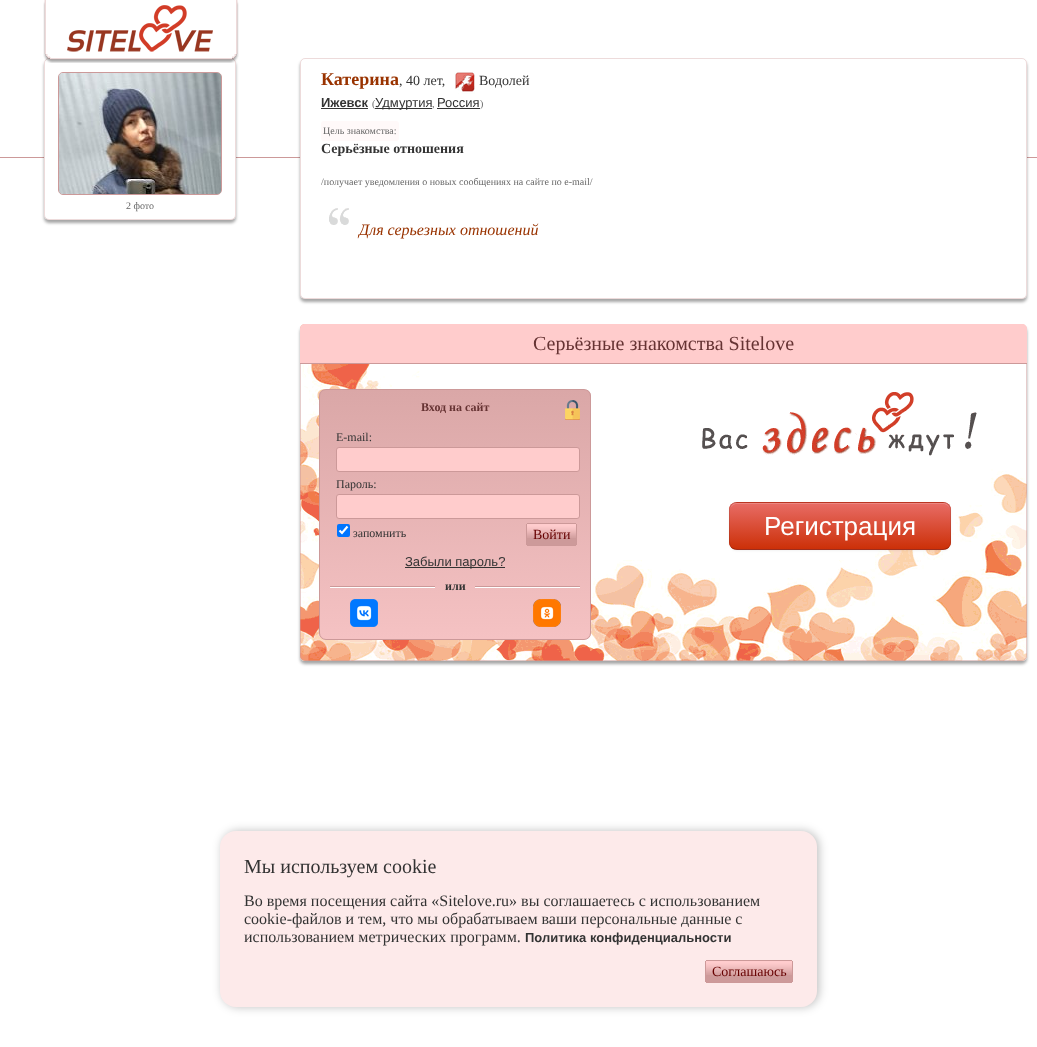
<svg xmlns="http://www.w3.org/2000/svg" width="1037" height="1047">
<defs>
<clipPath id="clip1"><path d="M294 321h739v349h-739zm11 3h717c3 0 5 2 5 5v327c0 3-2 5-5 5h-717c-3 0-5-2-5-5v-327c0-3 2-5 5-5z" clip-rule="evenodd"/></clipPath>
<clipPath id="clip2"><rect x="319" y="389" width="272" height="251" rx="7"/></clipPath>
<linearGradient id="g1" gradientUnits="userSpaceOnUse" x1="455" y1="390" x2="455" y2="639"><stop offset="0" stop-color="#daa7a7"/><stop offset="1" stop-color="#f5c2c3"/></linearGradient>
<clipPath id="clip3"><rect x="729" y="502" width="222" height="48" rx="8"/></clipPath>
<linearGradient id="g2" gradientUnits="userSpaceOnUse" x1="840" y1="503" x2="840" y2="549"><stop offset="0" stop-color="#e86c66"/><stop offset="1" stop-color="#cc3008"/></linearGradient>
</defs>
<rect width="100%" height="100%" fill="#fff"/>
<rect y="157" width="1037" height="1" fill="#c99"/>
<rect x="44" y="61" width="192" height="162" rx="5" fill="#00000059" filter="blur(1.5px)"/>
<rect x="44" y="58" width="192" height="162" rx="5" fill="#fff"/>
<rect x="44.5" y="58.5" width="191" height="161" rx="4.5" fill="none" stroke="#cc999959"/>
<image x="43" y="0" width="196" height="63" href="media/1.png"/>
<image x="59" y="73" width="162" height="121" href="media/2.png"/>
<rect x="58.5" y="72.5" width="163" height="122" rx="4.5" fill="none" stroke="#c99"/>
<image x="59" y="73" width="162" height="121" href="media/3.png"/>
<text x="126" y="209" style="font-family:Liberation Serif;font-size:10px;fill:#666">2 фото</text>
<rect x="300" y="61" width="727" height="241" rx="5" fill="#00000059" filter="blur(1.5px)"/>
<rect x="300" y="58" width="727" height="241" rx="5" fill="#fff"/>
<rect x="300.5" y="58.5" width="726" height="240" rx="4.5" fill="none" stroke="#cc999959"/>
<text x="321" y="85" style="font-family:Liberation Serif;font-size:18px;font-weight:bold;fill:#930">Катерина</text>
<text x="399" y="85" style="font-family:Liberation Serif;font-size:14px;fill:#333">, 40 лет,</text>
<image x="454" y="72" width="21" height="22" href="media/4.png"/>
<text x="479" y="85" style="font-family:Liberation Serif;font-size:14px;fill:#333">Водолей</text>
<text x="321" y="107" style="font-family:Liberation Sans;font-size:13px;font-weight:bold;fill:#333">Ижевск</text>
<rect x="321" y="108" width="47" height="1" fill="#333"/>
<text x="372" y="107" style="font-family:Liberation Serif;font-size:10px;fill:#666">(</text>
<rect x="375" y="108" width="57" height="1" fill="#333"/>
<text x="375" y="107" style="font-family:Liberation Sans;font-size:13px;fill:#333">Удмуртия</text>
<text x="432" y="107" style="font-family:Liberation Serif;font-size:10px;fill:#666">,</text>
<rect x="437" y="108" width="43" height="1" fill="#333"/>
<text x="437" y="107" style="font-family:Liberation Sans;font-size:13px;fill:#333">Россия</text>
<text x="480" y="107" style="font-family:Liberation Serif;font-size:10px;fill:#666">)</text>
<rect x="321" y="121" width="78" height="20" rx="3" fill="#fff9f9"/>
<text x="323" y="134" style="font-family:Liberation Serif;font-size:10px;fill:#666">Цель знакомства:</text>
<text x="321" y="153" style="font-family:Liberation Serif;font-size:14px;font-weight:bold;fill:#333">Серьёзные отношения</text>
<text x="321" y="185" style="font-family:Liberation Serif;font-size:10px;fill:#666">/получает уведомления о новых сообщениях на сайте по e-mail/</text>
<image x="329" y="208" width="20" height="17" href="media/5.png"/>
<text x="359" y="235" style="font-family:Liberation Serif;font-size:16px;font-style:italic;fill:#930">Для серьезных отношений</text>
<rect x="222" y="831" width="597" height="176" rx="16" fill="#00000040" filter="blur(5px)"/>
<rect x="220" y="831" width="597" height="176" rx="16" fill="#fdeaea"/>
<text x="244" y="873" style="font-family:Liberation Serif;font-size:20px;fill:#333">Мы используем сookie</text>
<text x="244" y="906" style="font-family:Liberation Serif;font-size:16px;fill:#333">Во время посещения сайта «Sitelove.ru» вы соглашаетесь с использованием</text>
<text x="244" y="924" style="font-family:Liberation Serif;font-size:16px;fill:#333">cookie-файлов и тем, что мы обрабатываем ваши персональные данные с</text>
<text x="244" y="942" style="font-family:Liberation Serif;font-size:16px;fill:#333">использованием метрических программ.</text>
<text x="525" y="942" style="font-family:Liberation Sans;font-size:13px;font-weight:bold;fill:#333">Политика конфиденциальности</text>
<image x="706" y="960" width="86" height="15" href="media/6.png"/>
<rect x="706" y="975" width="86" height="7" fill="#cd9a9a"/>
<text x="712" y="976" style="font-family:Liberation Serif;font-size:14px;fill:#600">Соглашаюсь</text>
<rect x="792" y="961" width="1" height="21" fill="#c99"/>
<rect x="705" y="961" width="1" height="21" fill="#c99"/>
<rect x="706" y="982" width="86" height="1" fill="#c99"/>
<image x="300" y="324" width="727" height="337" href="media/7.png"/>
<g clip-path="url(#clip1)">
<rect x="300" y="327" width="727" height="337" rx="5" fill="#00000059" filter="blur(1.5px)"/>
</g>
<rect x="300.5" y="324.5" width="726" height="336" rx="4.5" fill="none" stroke="#cc999980"/>
<path d="M305 324h717c3 0 5 2 5 5v35h-727v-35c0-3 2-5 5-5z" fill="#fcc"/>
<rect x="300" y="363" width="727" height="1" fill="#c99"/>
<text x="533" y="350" style="font-family:Liberation Serif;font-size:20px;fill:#633">Серьёзные знакомства Sitelove</text>
<g clip-path="url(#clip2)">
<rect x="319" y="390" width="272" height="249" fill="url(#g1)"/>
</g>
<rect x="319.5" y="389.5" width="271" height="250" rx="6.5" fill="none" stroke="#c99"/>
<text x="421" y="411" style="font-family:Liberation Serif;font-size:12px;font-weight:bold;fill:#633">Вход на сайт</text>
<image x="565" y="400" width="15" height="20" href="media/8.png"/>
<text x="336" y="441" style="font-family:Liberation Serif;font-size:12px;fill:#333">E-mail:</text>
<rect x="336.5" y="447.5" width="243" height="24" rx="2.5" fill="#fcc" stroke="#c99"/>
<text x="336" y="488" style="font-family:Liberation Serif;font-size:12px;fill:#333">Пароль:</text>
<rect x="336.5" y="494.5" width="243" height="24" rx="2.5" fill="#fcc" stroke="#c99"/>
<rect x="337" y="524" width="13" height="13" rx="2" fill="#0075ff"/>
<path d="M339.5 530.5l2.5 2.5l5.5-6.5" fill="none" stroke="#fff" stroke-width="2.1"/>
<text x="353" y="537" style="font-family:Liberation Serif;font-size:12px;fill:#333">запомнить</text>
<image x="527" y="523" width="49" height="15" href="media/9.png"/>
<rect x="527" y="538" width="49" height="7" fill="#cd9a9a"/>
<text x="533" y="539" style="font-family:Liberation Serif;font-size:14px;fill:#600">Войти</text>
<rect x="576" y="524" width="1" height="21" fill="#c99"/>
<rect x="526" y="524" width="1" height="21" fill="#c99"/>
<rect x="527" y="545" width="49" height="1" fill="#c99"/>
<rect x="405" y="567" width="100" height="1" fill="#333"/>
<text x="405" y="566" style="font-family:Liberation Sans;font-size:13px;fill:#333">Забыли пароль?</text>
<rect x="330" y="586" width="105" height="1" fill="#c99"/>
<rect x="330" y="587" width="105" height="1" fill="#fff"/>
<text x="445" y="590" style="font-family:Liberation Serif;font-size:12px;font-weight:bold;fill:#333">или</text>
<rect x="475" y="586" width="105" height="1" fill="#c99"/>
<rect x="475" y="587" width="105" height="1" fill="#fff"/>
<image x="350" y="599" width="28" height="28" href="media/10.png"/>
<image x="533" y="599" width="28" height="28" href="media/11.png"/>
<image x="702" y="392" width="275" height="64" href="media/12.png"/>
<rect x="729" y="503" width="222" height="48" rx="8" fill="#0000000d" filter="blur(1px)"/>
<rect x="729" y="502" width="222" height="48" rx="8" fill="#d13d27"/>
<g clip-path="url(#clip3)">
<rect x="729" y="503" width="222" height="46" fill="url(#g2)"/>
</g>
<path d="M737 504h206c4 0 7 3 7 7c0-4-2-7-6-8h-207c-5 0-7 4-7 8c0-4 3-7 7-7z" fill="#ffffff33"/>
<path d="M948.5 547.5c-1.5 1-3.5 2-5.5 2h-206c-2 0-4-1-5.5-2" fill="none" stroke="#00000040"/>
<path d="M731.5 547.5c-1-1.5-2-3.5-2-5.5v-32c0-2 1-4 2-5.5c1.5-1 3.5-2 5.5-2h206c2 0 4 1 5.5 2c1 1.5 2 3.5 2 5.5v32c0 2-1 4-2 5.5" fill="none" stroke="#0000001a"/>
<text x="764" y="535" style="font-family:Liberation Sans;font-size:26px;fill:#fff">Регистрация</text>
</svg>
